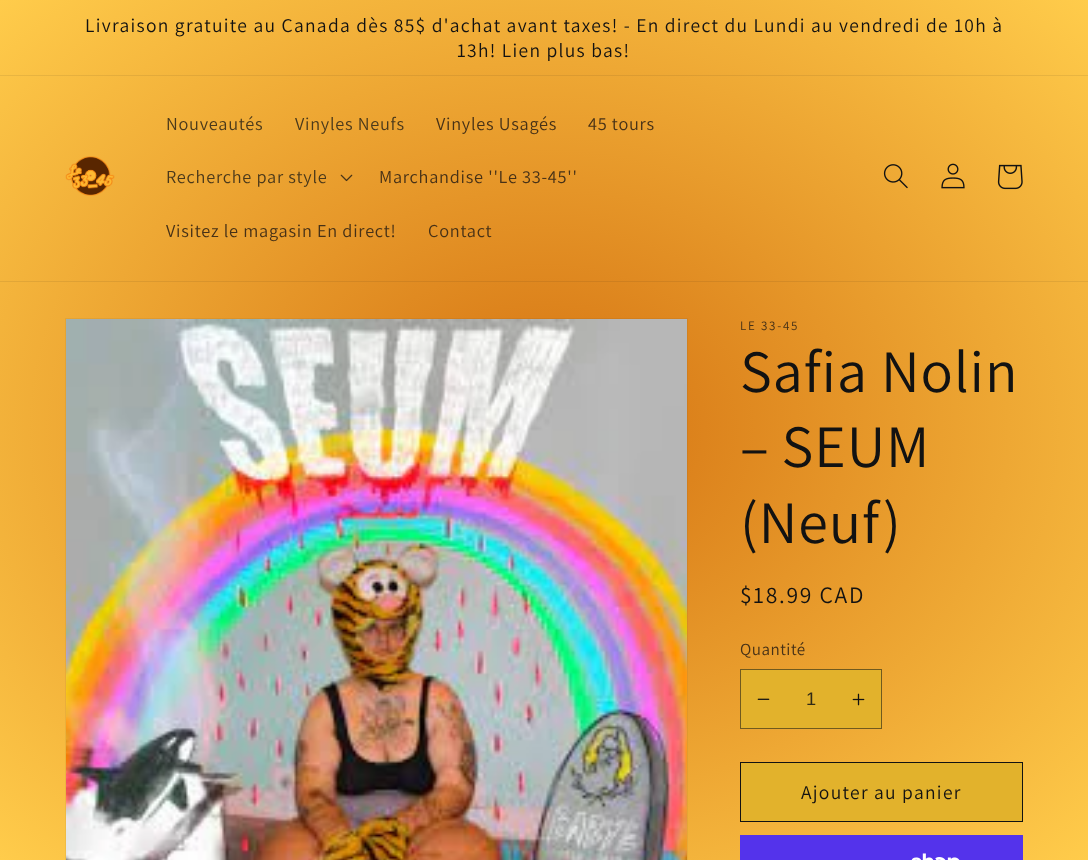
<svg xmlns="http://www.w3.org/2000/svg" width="1088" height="860">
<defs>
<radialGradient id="g1" gradientUnits="userSpaceOnUse" cx="0" cy="0" r="1" gradientTransform="matrix(769 0 0 608 544 430)"><stop offset="0" stop-color="#d47111"/><stop offset="1" stop-color="#ffcc4b"/></radialGradient>
<radialGradient id="g2" gradientUnits="userSpaceOnUse" cx="0" cy="0" r="1" gradientTransform="matrix(769 0 0 608 544 430)"><stop offset="0" stop-color="#c46911"/><stop offset="1" stop-color="#ecbd46"/></radialGradient>
</defs>
<rect width="100%" height="100%" fill="#fff"/>
<rect width="1088" height="860" fill="url(#g1)"/>
<rect y="75" width="1088" height="1" fill="url(#g2)"/>
<rect y="281" width="1088" height="1" fill="url(#g2)"/>
<text x="85" y="32" style="font-family:Assistant;font-size:19.5px;letter-spacing:1.3px;fill:#121212">Livraison gratuite au Canada dès 85$ d'achat avant taxes! - En direct du Lundi au vendredi de 10h à</text>
<text x="457" y="57" style="font-family:Assistant;font-size:19.5px;letter-spacing:1.3px;fill:#121212">13h! Lien plus bas!</text>
<image x="65" y="156" width="50" height="40" href="media/1.png"/>
<text x="166" y="130" style="font-family:Assistant;font-size:18.25px;letter-spacing:0.75px;fill:#4a391b">Nouveautés</text>
<text x="295" y="130" style="font-family:Assistant;font-size:18.25px;letter-spacing:0.75px;fill:#4a391b">Vinyles Neufs</text>
<text x="436" y="130" style="font-family:Assistant;font-size:18.25px;letter-spacing:0.75px;fill:#463117">Vinyles Usagés</text>
<text x="588" y="130" style="font-family:Assistant;font-size:18.25px;letter-spacing:0.75px;fill:#463117">45 tours</text>
<text x="166" y="183" style="font-family:Assistant;font-size:18.25px;letter-spacing:0.75px;fill:#4a391b">Recherche par style</text>
<image x="340" y="174" width="13" height="8" href="media/2.png"/>
<text x="379" y="183" style="font-family:Assistant;font-size:18.25px;letter-spacing:0.75px;fill:#463117">Marchandise ''Le 33-45''</text>
<text x="166" y="237" style="font-family:Assistant;font-size:18.25px;letter-spacing:0.75px;fill:#463117">Visitez le magasin En direct!</text>
<text x="428" y="237" style="font-family:Assistant;font-size:18.25px;letter-spacing:0.75px;fill:#463117">Contact</text>
<image x="883" y="164" width="25" height="25" href="media/3.png"/>
<image x="941" y="163" width="24" height="26" href="media/4.png"/>
<image x="997" y="164" width="26" height="26" href="media/5.png"/>
<rect x="65.5" y="318.5" width="622" height="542" fill="none" stroke="#1212120d"/>
<image x="66" y="319" width="621" height="541" href="media/6.png"/>
<text x="740" y="330" style="font-family:Assistant;font-size:13px;letter-spacing:1.75px;fill:#463117">LE 33-45</text>
<text x="740" y="392" style="font-family:Assistant;font-size:60px;letter-spacing:0.9px;fill:#121212">Safia Nolin</text>
<text x="740" y="467" word-spacing="-1" style="font-family:Assistant;font-size:60px;letter-spacing:0.9px;fill:#121212">– SEUM</text>
<text x="740" y="543" style="font-family:Assistant;font-size:60px;letter-spacing:0.9px;fill:#121212">(Neuf)</text>
<text x="740" y="603" style="font-family:Assistant;font-size:23.5px;letter-spacing:1.75px;fill:#121212">$18.99 CAD</text>
<text x="740" y="655" style="font-family:Assistant;font-size:17px;letter-spacing:0.5px;fill:#463117">Quantité</text>
<rect x="741" y="670" width="140" height="58" fill="#e2b22c"/>
<image x="757" y="698" width="13" height="2" href="media/7.png"/>
<image x="852" y="693" width="13" height="13" href="media/8.png"/>
<rect x="740.5" y="669.5" width="141" height="59" fill="none" stroke="#705a1e"/>
<text x="806" y="705" style="font-family:Liberation Sans;font-size:18.25px;fill:#312a16">1</text>
<rect x="741" y="763" width="281" height="58" fill="#e2b22c"/>
<rect x="740.5" y="762.5" width="282" height="59" fill="none" stroke="#121212"/>
<text x="801" y="799" style="font-family:Assistant;font-size:19.5px;letter-spacing:1.3px;fill:#121212">Ajouter au panier</text>
<rect x="740" y="835" width="283" height="25" fill="#5433eb"/>
<image x="911" y="853" width="49" height="7" href="media/9.png"/>
</svg>
